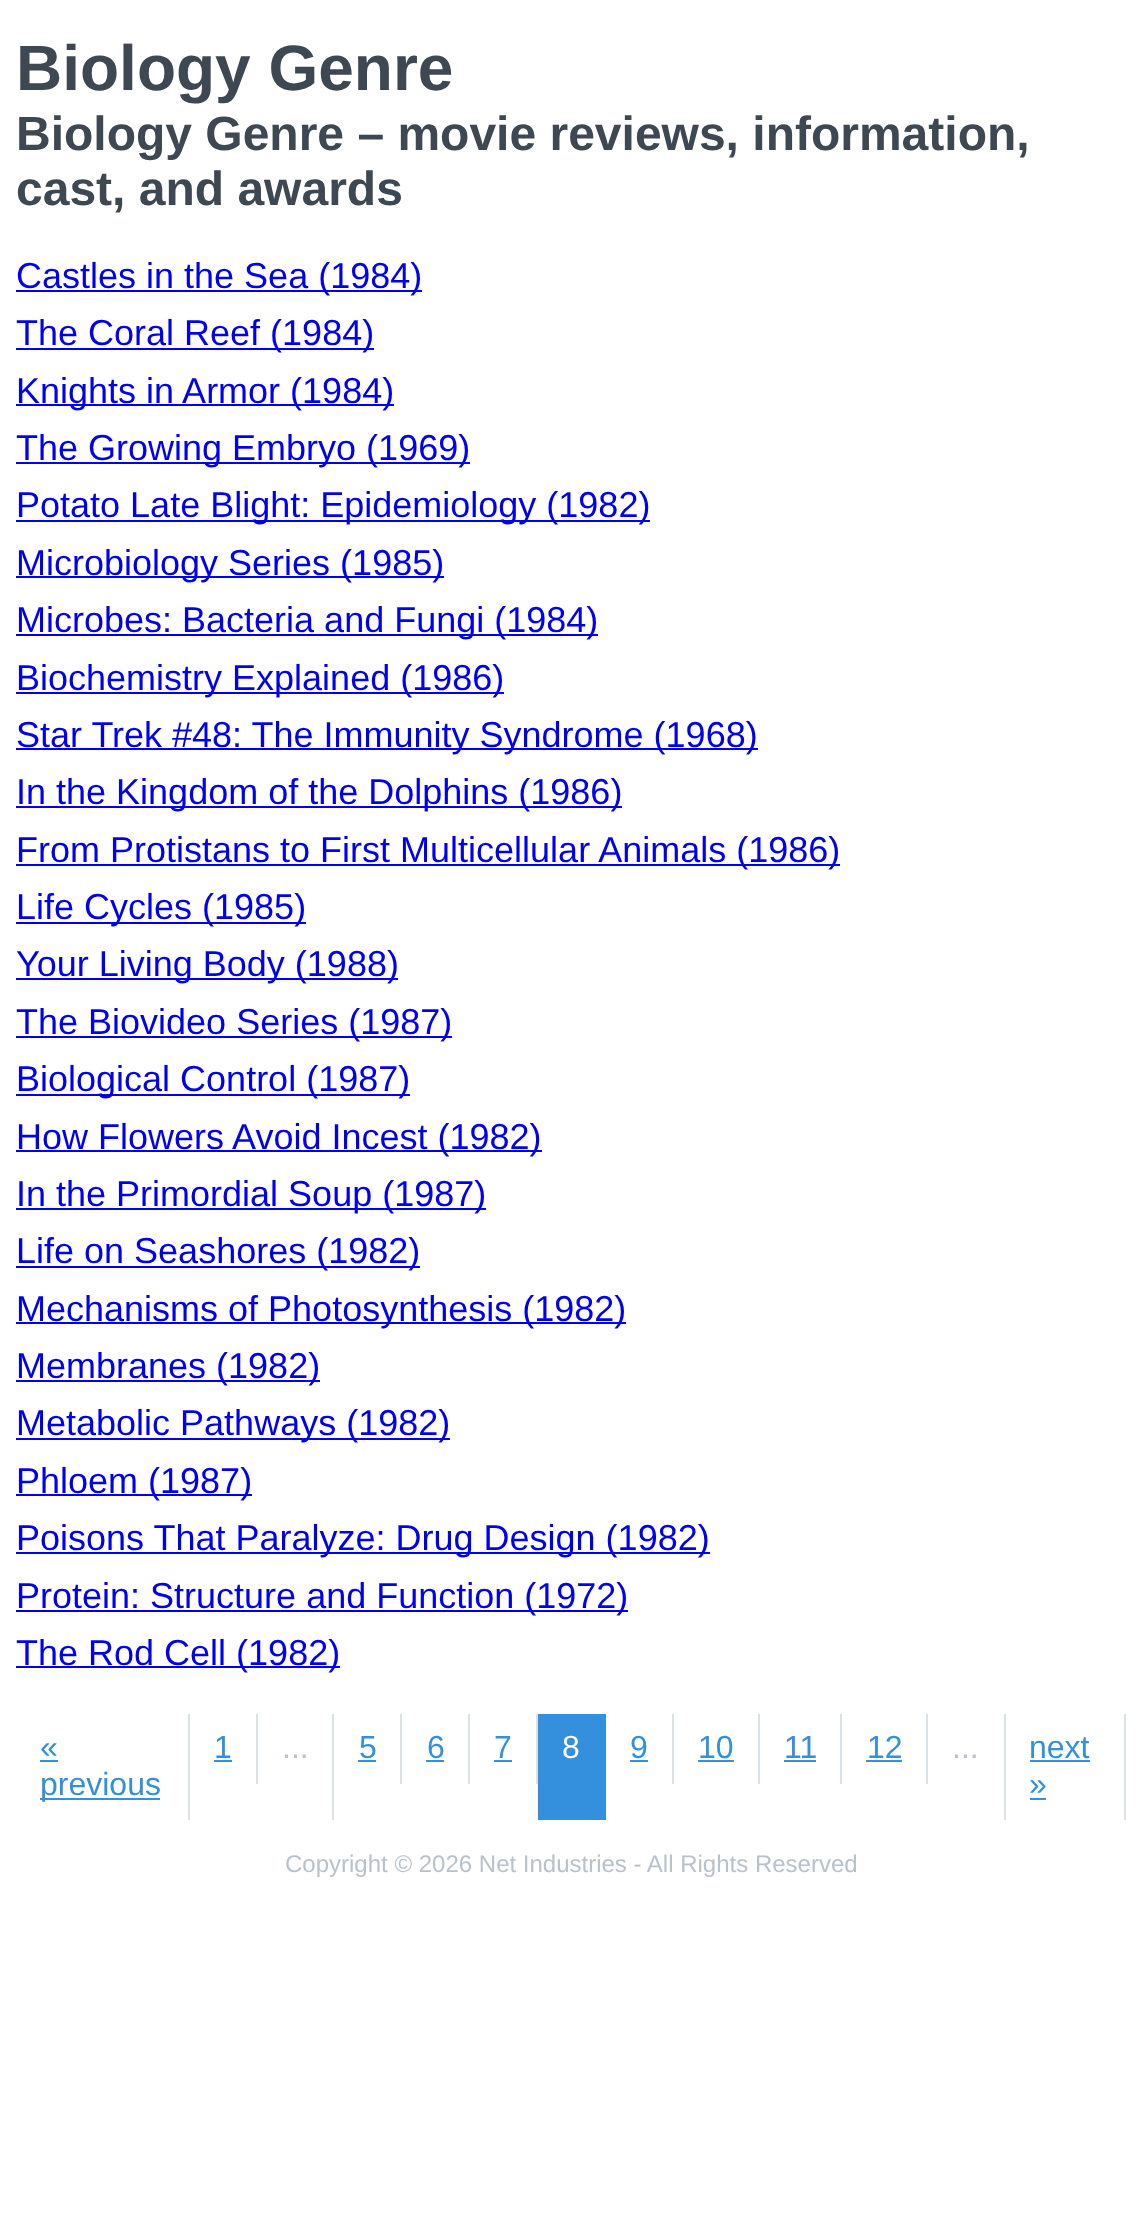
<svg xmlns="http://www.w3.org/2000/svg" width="1142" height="2236">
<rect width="100%" height="100%" fill="#fff"/>
<text x="16" y="90" style="font-family:Liberation Sans;font-size:64px;font-weight:bold;fill:#3d4852">Biology Genre</text>
<text x="16" y="150" style="font-family:Liberation Sans;font-size:48px;font-weight:bold;fill:#3d4852">Biology Genre – movie reviews, information,</text>
<text x="16" y="205" style="font-family:Liberation Sans;font-size:48px;font-weight:bold;fill:#3d4852">cast, and awards</text>
<rect x="16" y="290" width="406" height="2" fill="#00e"/>
<text x="16" y="288" style="font-family:Liberation Sans;font-size:36px;fill:#00e">Castles in the Sea (1984)</text>
<rect x="16" y="348" width="358" height="2" fill="#00e"/>
<text x="16" y="345" style="font-family:Liberation Sans;font-size:36px;fill:#00e">The Coral Reef (1984)</text>
<rect x="16" y="404" width="378" height="2" fill="#00e"/>
<text x="16" y="403" style="font-family:Liberation Sans;font-size:36px;fill:#00e">Knights in Armor (1984)</text>
<rect x="16" y="462" width="454" height="2" fill="#00e"/>
<text x="16" y="460" style="font-family:Liberation Sans;font-size:36px;fill:#00e">The Growing Embryo (1969)</text>
<rect x="16" y="520" width="634" height="2" fill="#00e"/>
<text x="16" y="517" style="font-family:Liberation Sans;font-size:36px;fill:#00e">Potato Late Blight: Epidemiology (1982)</text>
<rect x="16" y="576" width="428" height="2" fill="#00e"/>
<text x="16" y="575" style="font-family:Liberation Sans;font-size:36px;fill:#00e">Microbiology Series (1985)</text>
<rect x="16" y="634" width="582" height="2" fill="#00e"/>
<text x="16" y="632" style="font-family:Liberation Sans;font-size:36px;fill:#00e">Microbes: Bacteria and Fungi (1984)</text>
<rect x="16" y="692" width="488" height="2" fill="#00e"/>
<text x="16" y="690" style="font-family:Liberation Sans;font-size:36px;fill:#00e">Biochemistry Explained (1986)</text>
<rect x="16" y="748" width="742" height="2" fill="#00e"/>
<text x="16" y="747" style="font-family:Liberation Sans;font-size:36px;fill:#00e">Star Trek #48: The Immunity Syndrome (1968)</text>
<rect x="16" y="806" width="606" height="2" fill="#00e"/>
<text x="16" y="804" style="font-family:Liberation Sans;font-size:36px;fill:#00e">In the Kingdom of the Dolphins (1986)</text>
<rect x="16" y="864" width="824" height="2" fill="#00e"/>
<text x="16" y="862" style="font-family:Liberation Sans;font-size:36px;fill:#00e">From Protistans to First Multicellular Animals (1986)</text>
<rect x="16" y="922" width="290" height="2" fill="#00e"/>
<text x="16" y="919" style="font-family:Liberation Sans;font-size:36px;fill:#00e">Life Cycles (1985)</text>
<rect x="16" y="978" width="382" height="2" fill="#00e"/>
<text x="16" y="976" style="font-family:Liberation Sans;font-size:36px;fill:#00e">Your Living Body (1988)</text>
<rect x="16" y="1036" width="436" height="2" fill="#00e"/>
<text x="16" y="1034" style="font-family:Liberation Sans;font-size:36px;fill:#00e">The Biovideo Series (1987)</text>
<rect x="16" y="1094" width="394" height="2" fill="#00e"/>
<text x="16" y="1091" style="font-family:Liberation Sans;font-size:36px;fill:#00e">Biological Control (1987)</text>
<rect x="16" y="1150" width="526" height="2" fill="#00e"/>
<text x="16" y="1149" style="font-family:Liberation Sans;font-size:36px;fill:#00e">How Flowers Avoid Incest (1982)</text>
<rect x="16" y="1208" width="470" height="2" fill="#00e"/>
<text x="16" y="1206" style="font-family:Liberation Sans;font-size:36px;fill:#00e">In the Primordial Soup (1987)</text>
<rect x="16" y="1266" width="404" height="2" fill="#00e"/>
<text x="16" y="1263" style="font-family:Liberation Sans;font-size:36px;fill:#00e">Life on Seashores (1982)</text>
<rect x="16" y="1322" width="610" height="2" fill="#00e"/>
<text x="16" y="1321" style="font-family:Liberation Sans;font-size:36px;fill:#00e">Mechanisms of Photosynthesis (1982)</text>
<rect x="16" y="1380" width="304" height="2" fill="#00e"/>
<text x="16" y="1378" style="font-family:Liberation Sans;font-size:36px;fill:#00e">Membranes (1982)</text>
<rect x="16" y="1438" width="434" height="2" fill="#00e"/>
<text x="16" y="1435" style="font-family:Liberation Sans;font-size:36px;fill:#00e">Metabolic Pathways (1982)</text>
<rect x="16" y="1494" width="236" height="2" fill="#00e"/>
<text x="16" y="1493" style="font-family:Liberation Sans;font-size:36px;fill:#00e">Phloem (1987)</text>
<rect x="16" y="1552" width="694" height="2" fill="#00e"/>
<text x="16" y="1550" style="font-family:Liberation Sans;font-size:36px;fill:#00e">Poisons That Paralyze: Drug Design (1982)</text>
<rect x="16" y="1610" width="612" height="2" fill="#00e"/>
<text x="16" y="1608" style="font-family:Liberation Sans;font-size:36px;fill:#00e">Protein: Structure and Function (1972)</text>
<rect x="16" y="1666" width="324" height="2" fill="#00e"/>
<text x="16" y="1665" style="font-family:Liberation Sans;font-size:36px;fill:#00e">The Rod Cell (1982)</text>
<rect x="188" y="1714" width="2" height="106" fill="#dae1e7"/>
<text x="40" y="1758" style="font-family:Liberation Sans;font-size:32px;fill:#3490dc">«</text>
<rect x="40" y="1760" width="18" height="2" fill="#3490dc"/>
<rect x="40" y="1798" width="120" height="2" fill="#3490dc"/>
<text x="40" y="1795" style="font-family:Liberation Sans;font-size:32px;fill:#3490dc">previous</text>
<rect x="256" y="1714" width="2" height="70" fill="#dae1e7"/>
<text x="214" y="1758" style="font-family:Liberation Sans;font-size:32px;fill:#3490dc">1</text>
<rect x="214" y="1760" width="18" height="2" fill="#3490dc"/>
<rect x="332" y="1714" width="2" height="106" fill="#dae1e7"/>
<text x="282" y="1758" style="font-family:Liberation Sans;font-size:32px;fill:#b8c2cc">...</text>
<rect x="400" y="1714" width="2" height="70" fill="#dae1e7"/>
<text x="359" y="1758" style="font-family:Liberation Sans;font-size:32px;fill:#3490dc">5</text>
<rect x="358" y="1760" width="18" height="2" fill="#3490dc"/>
<rect x="468" y="1714" width="2" height="70" fill="#dae1e7"/>
<text x="427" y="1758" style="font-family:Liberation Sans;font-size:32px;fill:#3490dc">6</text>
<rect x="426" y="1760" width="18" height="2" fill="#3490dc"/>
<rect x="536" y="1714" width="2" height="70" fill="#dae1e7"/>
<text x="494" y="1758" style="font-family:Liberation Sans;font-size:32px;fill:#3490dc">7</text>
<rect x="494" y="1760" width="18" height="2" fill="#3490dc"/>
<rect x="538" y="1714" width="68" height="106" fill="#3490dc"/>
<text x="562" y="1758" style="font-family:Liberation Sans;font-size:32px;fill:#fff">8</text>
<rect x="672" y="1714" width="2" height="70" fill="#dae1e7"/>
<text x="630" y="1758" style="font-family:Liberation Sans;font-size:32px;fill:#3490dc">9</text>
<rect x="630" y="1760" width="18" height="2" fill="#3490dc"/>
<rect x="758" y="1714" width="2" height="70" fill="#dae1e7"/>
<text x="698" y="1758" style="font-family:Liberation Sans;font-size:32px;fill:#3490dc">10</text>
<rect x="698" y="1760" width="36" height="2" fill="#3490dc"/>
<rect x="840" y="1714" width="2" height="70" fill="#dae1e7"/>
<text x="784" y="1758" style="font-family:Liberation Sans;font-size:32px;fill:#3490dc">11</text>
<rect x="784" y="1760" width="32" height="2" fill="#3490dc"/>
<rect x="926" y="1714" width="2" height="70" fill="#dae1e7"/>
<text x="867" y="1758" style="font-family:Liberation Sans;font-size:32px;fill:#3490dc">12</text>
<rect x="866" y="1760" width="36" height="2" fill="#3490dc"/>
<rect x="1004" y="1714" width="2" height="106" fill="#dae1e7"/>
<text x="952" y="1758" style="font-family:Liberation Sans;font-size:32px;fill:#b8c2cc">...</text>
<rect x="1124" y="1714" width="2" height="106" fill="#dae1e7"/>
<text x="1029" y="1758" style="font-family:Liberation Sans;font-size:32px;fill:#3490dc">next</text>
<rect x="1030" y="1760" width="60" height="2" fill="#3490dc"/>
<text x="1029" y="1795" style="font-family:Liberation Sans;font-size:32px;fill:#3490dc">»</text>
<rect x="1030" y="1798" width="16" height="2" fill="#3490dc"/>
<text x="285" y="1872" style="font-family:Liberation Sans;font-size:24px;fill:#b8c2cc">Copyright © 2026 Net Industries - All Rights Reserved</text>
</svg>
